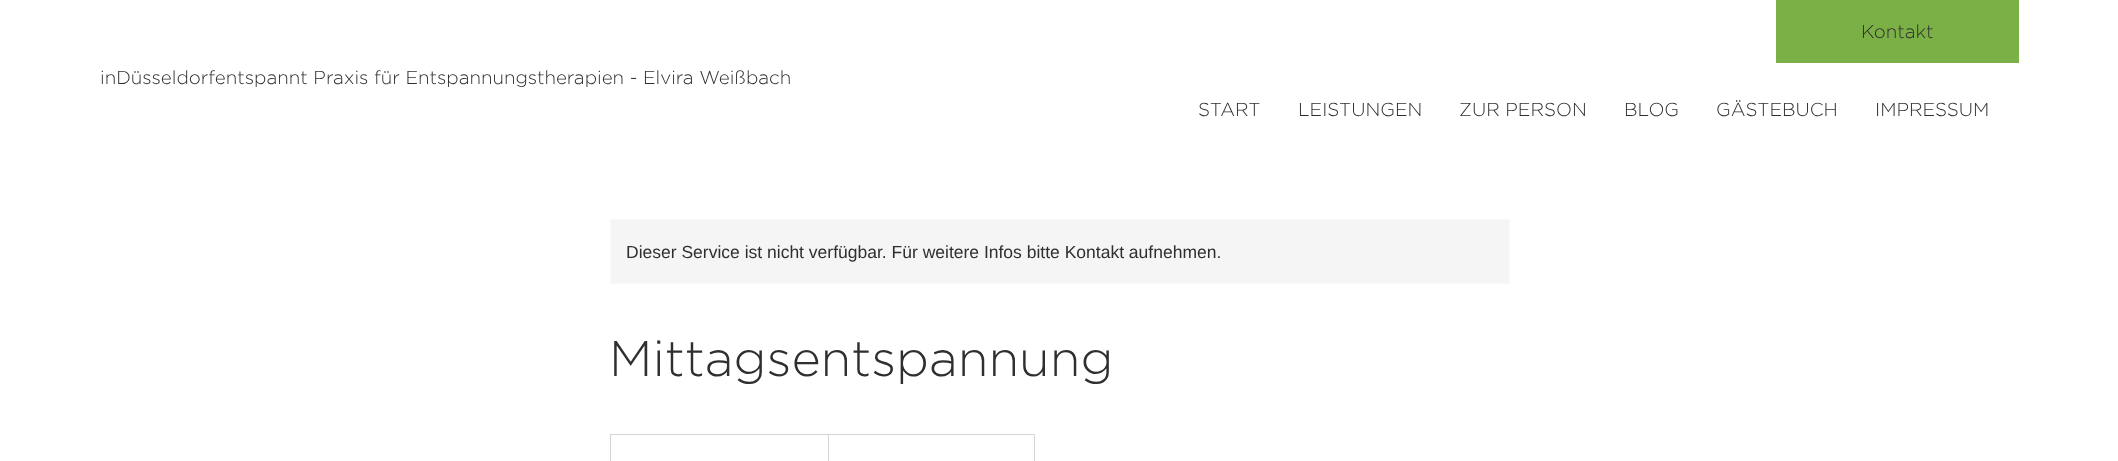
<svg xmlns="http://www.w3.org/2000/svg" width="2118" height="461">
<rect width="100%" height="100%" fill="#fff"/>
<text x="100" y="84" style="font-family:Gotham;font-size:18.75px;font-weight:300;fill:#2f2f2e">inDüsseldorfentspannt Praxis für Entspannungstherapien - Elvira Weißbach</text>
<rect x="1776" width="243" height="63" fill="#7bb046"/>
<text x="1861" y="38" style="font-family:Gotham;font-size:18.75px;font-weight:300;fill:#2f2f2e">Kontakt</text>
<text x="1198" y="116" style="font-family:Gotham;font-size:18.75px;font-weight:300;fill:#2f2f2e">START</text>
<text x="1298" y="116" style="font-family:Gotham;font-size:18.75px;font-weight:300;fill:#2f2f2e">LEISTUNGEN</text>
<text x="1459" y="116" style="font-family:Gotham;font-size:18.75px;font-weight:300;fill:#2f2f2e">ZUR PERSON</text>
<text x="1624" y="116" style="font-family:Gotham;font-size:18.75px;font-weight:300;fill:#2f2f2e">BLOG</text>
<text x="1716" y="116" style="font-family:Gotham;font-size:18.75px;font-weight:300;fill:#2f2f2e">GÄSTEBUCH</text>
<text x="1875" y="116" style="font-family:Gotham;font-size:18.75px;font-weight:300;fill:#2f2f2e">IMPRESSUM</text>
<rect x="610" y="219" width="900" height="65" rx="2.5" fill="#f5f5f5"/>
<rect x="610.5" y="219.5" width="899" height="64" rx="2" fill="none" stroke="#ffffff66"/>
<text x="626" y="258" style="font-family:Liberation Sans;font-size:17.5px;fill:#2f2f2e">Dieser Service ist nicht verfügbar. Für weitere Infos bitte Kontakt aufnehmen.</text>
<text x="609" y="376" style="font-family:Gotham;font-size:50px;font-weight:300;fill:#2f2f2e">Mittagsentspannung</text>
<rect x="610.5" y="434.5" width="424" height="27" fill="none" stroke="#d5d5d5"/>
<path d="M828 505v-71l1 1v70z" fill="#d5d5d5"/>
</svg>
